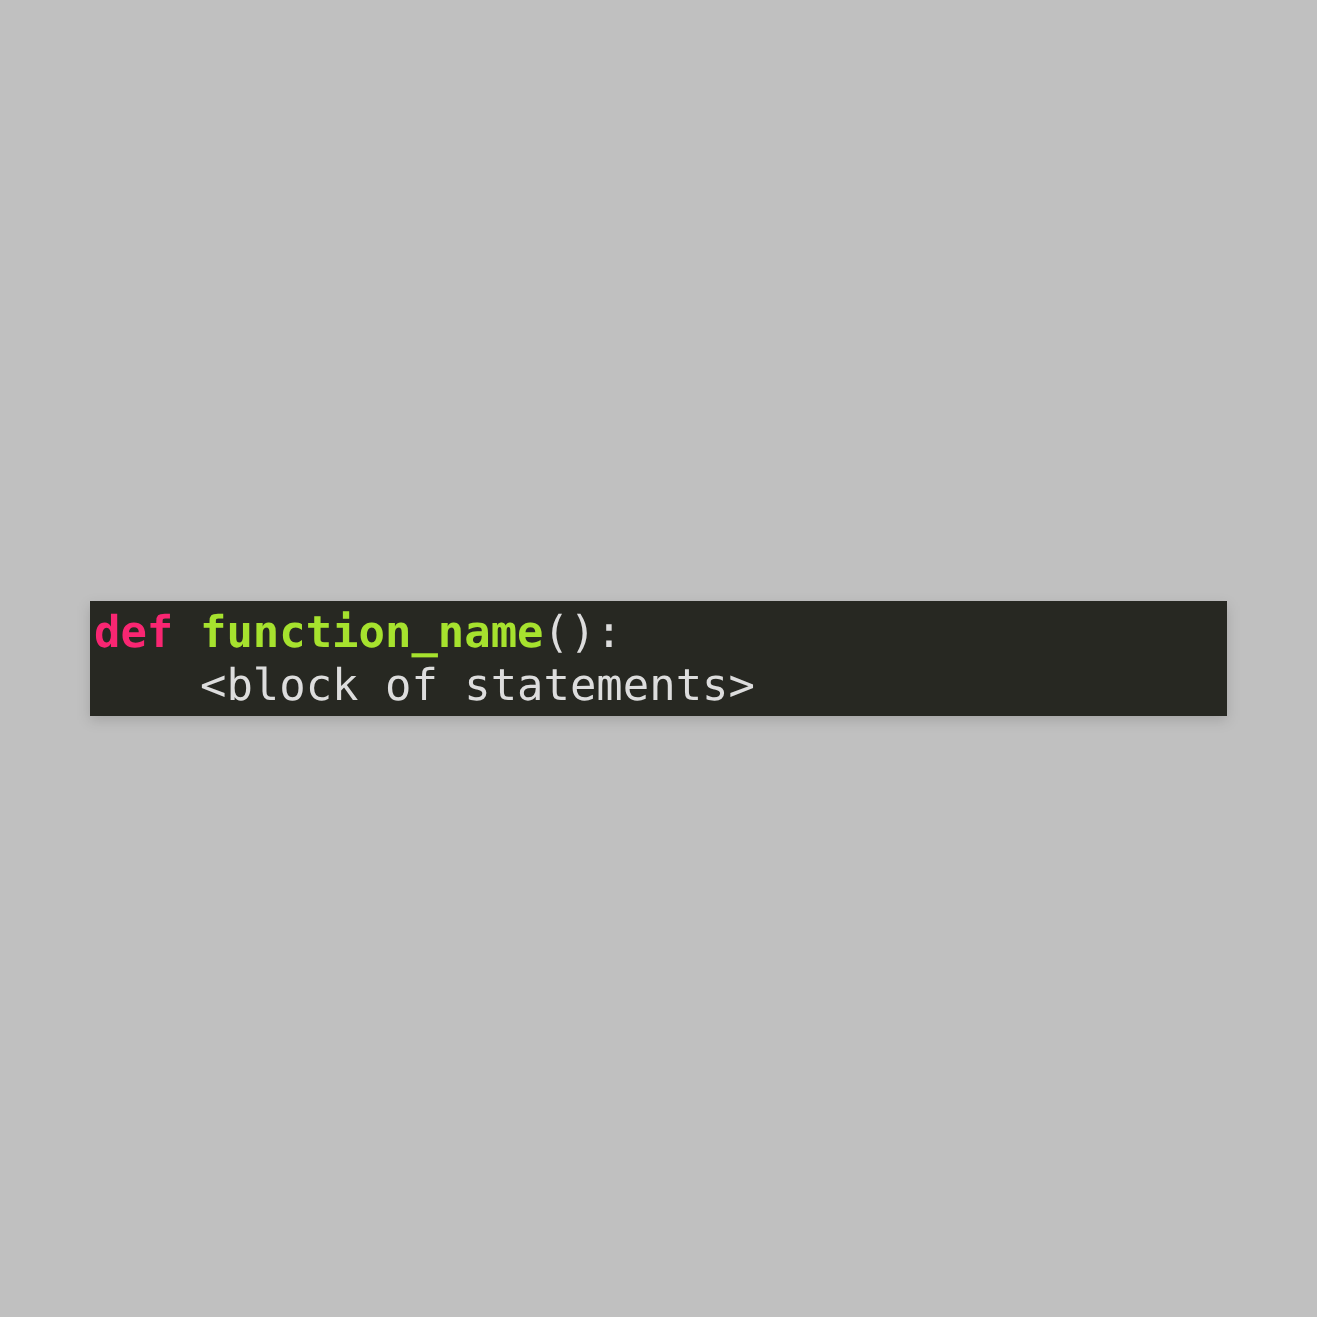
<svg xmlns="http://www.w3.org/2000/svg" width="1317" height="1317">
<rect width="100%" height="100%" fill="#c0c0c0"/>
<rect x="90" y="606" width="1137" height="114" fill="#00000026" filter="blur(6.5px)"/>
<rect x="90" y="601" width="1137" height="115" fill="#272822"/>
<text x="94" y="647" style="font-family:DejaVu Sans Mono;font-size:43.9px;font-weight:bold;fill:#f92672">def</text>
<text x="200" y="647" style="font-family:DejaVu Sans Mono;font-size:43.9px;font-weight:bold;fill:#a6e22e">function_name</text>
<text x="543" y="647" style="font-family:DejaVu Sans Mono;font-size:43.9px;fill:#ddd">():</text>
<text x="200" y="700" style="font-family:DejaVu Sans Mono;font-size:43.9px;fill:#ddd">&lt;block of statements&gt;</text>
</svg>
